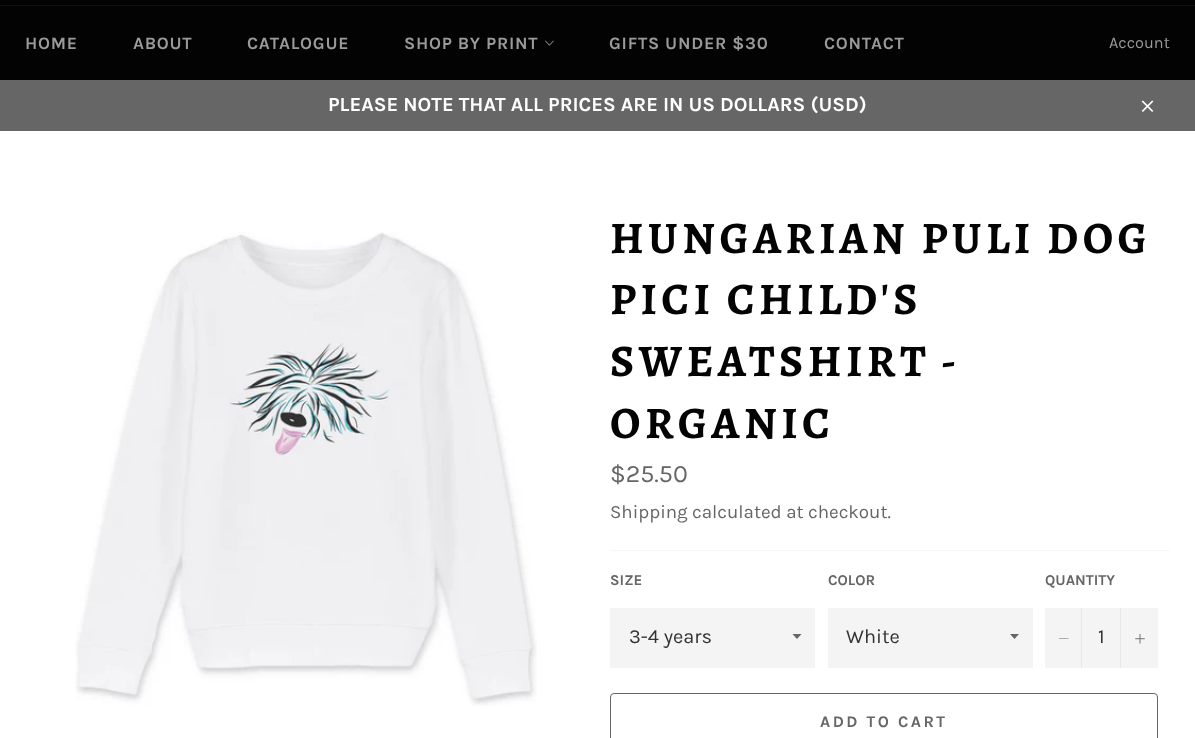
<svg xmlns="http://www.w3.org/2000/svg" width="1195" height="738">
<rect width="100%" height="100%" fill="#030303"/>
<rect y="5" width="1195" height="1" fill="#101010"/>
<text x="25" y="49" style="font-family:Karla;font-size:17.5px;font-weight:bold;letter-spacing:0.75px;fill:#9a9a9a">HOME</text>
<text x="133" y="49" style="font-family:Karla;font-size:17.5px;font-weight:bold;letter-spacing:0.75px;fill:#9a9a9a">ABOUT</text>
<text x="247" y="49" style="font-family:Karla;font-size:17.5px;font-weight:bold;letter-spacing:0.75px;fill:#9a9a9a">CATALOGUE</text>
<text x="404" y="49" style="font-family:Karla;font-size:17.5px;font-weight:bold;letter-spacing:0.75px;fill:#9a9a9a">SHOP BY PRINT</text>
<image x="545" y="40" width="9" height="6" href="media/1.png"/>
<text x="609" y="49" style="font-family:Karla;font-size:17.5px;font-weight:bold;letter-spacing:0.75px;fill:#9a9a9a">GIFTS UNDER $30</text>
<text x="824" y="49" style="font-family:Karla;font-size:17.5px;font-weight:bold;letter-spacing:0.75px;fill:#9a9a9a">CONTACT</text>
<text x="1109" y="48" style="font-family:Karla;font-size:16.25px;fill:#9a9a9a">Account</text>
<rect y="80" width="1195" height="51" fill="#666"/>
<text x="328" y="111" style="font-family:Karla;font-size:20px;font-weight:bold;fill:#fff">PLEASE NOTE THAT ALL PRICES ARE IN US DOLLARS (USD)</text>
<image x="1141" y="100" width="13" height="12" href="media/2.png"/>
<rect y="131" width="1195" height="607" fill="#fff"/>
<image x="75" y="232" width="462" height="474" href="media/3.png"/>
<text x="610" y="253" style="font-family:Alegreya;font-size:45px;font-weight:bold;letter-spacing:4.5px;fill:#030303">HUNGARIAN PULI DOG</text>
<text x="610" y="314" style="font-family:Alegreya;font-size:45px;font-weight:bold;letter-spacing:4.5px;fill:#030303">PICI CHILD'S</text>
<text x="610" y="376" word-spacing="-1" style="font-family:Alegreya;font-size:45px;font-weight:bold;letter-spacing:4.5px;fill:#030303">SWEATSHIRT -</text>
<text x="610" y="438" style="font-family:Alegreya;font-size:45px;font-weight:bold;letter-spacing:4.5px;fill:#030303">ORGANIC</text>
<text x="610" y="482" style="font-family:Karla;font-size:25px;fill:#666">$25.50</text>
<text x="610" y="518" style="font-family:Karla;font-size:18.75px;fill:#666">Shipping calculated at checkout.</text>
<rect x="610" y="550" width="560" height="1" fill="#f7f7f7"/>
<text x="610" y="585" style="font-family:Karla;font-size:15px;font-weight:bold;fill:#666">SIZE</text>
<rect x="610" y="608" width="205" height="60" fill="#f4f4f4"/>
<path d="M792.5 634l4.5 5l4.5-5z" fill="#666"/>
<text x="629" y="643" style="font-family:Karla;font-size:20px;fill:#333">3-4 years</text>
<text x="828" y="585" style="font-family:Karla;font-size:15px;font-weight:bold;fill:#666">COLOR</text>
<rect x="828" y="608" width="205" height="60" fill="#f4f4f4"/>
<path d="M1010 634l4.5 5l4.5-5z" fill="#666"/>
<text x="846" y="643" style="font-family:Karla;font-size:20px;fill:#333">White</text>
<text x="1045" y="585" style="font-family:Karla;font-size:15px;font-weight:bold;fill:#666">QUANTITY</text>
<rect x="1045" y="608" width="113" height="60" fill="#f4f4f4"/>
<rect x="1081" y="608" width="1" height="60" fill="#e7e7e7"/>
<path d="M1068.5 638.5v.5h-9.5v-.5z" fill="#666" fill-rule="evenodd"/>
<text x="1098" y="643" style="font-family:Karla;font-size:20px;fill:#333">1</text>
<rect x="1120" y="608" width="1" height="60" fill="#e7e7e7"/>
<image x="1135" y="634" width="10" height="10" href="media/4.png"/>
<rect x="610.5" y="693.5" width="547" height="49" rx="3.5" fill="none" stroke="#666"/>
<text x="820" y="727" style="font-family:Karla;font-size:16.25px;font-weight:bold;letter-spacing:2.5px;fill:#666">ADD TO CART</text>
</svg>
